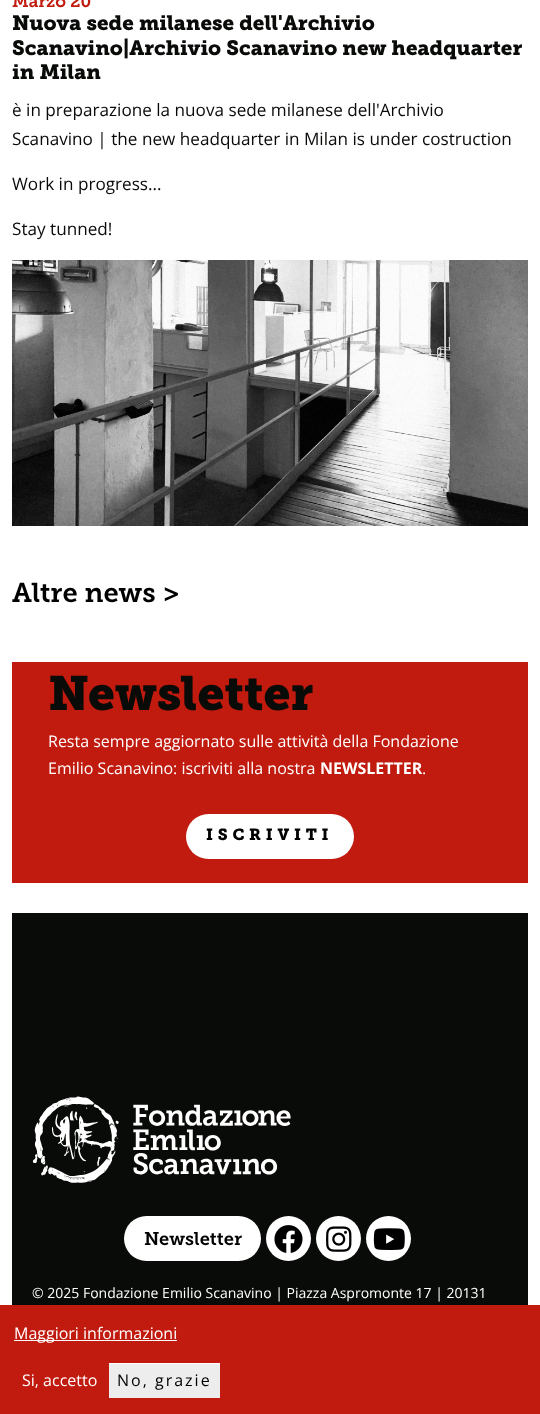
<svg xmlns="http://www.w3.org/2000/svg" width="540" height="1414">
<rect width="100%" height="100%" fill="#fff"/>
<text x="12" y="7" style="font-family:'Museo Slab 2';font-size:17.15px;fill:#c11a0e">Marzo 20</text>
<text x="12" y="30" style="font-family:Museo Slab;font-size:20.6px;fill:#090b08">Nuova sede milanese dell'Archivio</text>
<text x="12" y="55" style="font-family:Museo Slab;font-size:20.6px;fill:#090b08">Scanavino|Archivio Scanavino new headquarter</text>
<text x="12" y="79" style="font-family:Museo Slab;font-size:20.6px;fill:#090b08">in Milan</text>
<text x="12" y="116" style="font-family:Open Sans;font-size:17.15px;fill:#090b08">è in preparazione la nuova sede milanese dell'Archivio</text>
<text x="12" y="145" style="font-family:Open Sans;font-size:17.15px;fill:#090b08">Scanavino | the new headquarter in Milan is under costruction</text>
<text x="12" y="190" style="font-family:Open Sans;font-size:17.15px;fill:#090b08">Work in progress...</text>
<text x="12" y="235" style="font-family:Open Sans;font-size:17.15px;fill:#090b08">Stay tunned!</text>
<image x="12" y="260" width="516" height="266" href="media/1.png"/>
<text x="12" y="602" style="font-family:'Museo Slab 2';font-size:27.25px;fill:#000">Altre news &gt;</text>
<rect x="12" y="662" width="516" height="221" fill="#c11a0e"/>
<text x="48" y="710" style="font-family:Museo Slab;font-size:48px;fill:#090b08">Newsletter</text>
<text x="48" y="747" style="font-family:Open Sans;font-size:16px;fill:#fff">Resta sempre aggiornato sulle attività della Fondazione</text>
<text x="48" y="774" style="font-family:Open Sans;font-size:16px;fill:#fff">Emilio Scanavino: iscriviti alla nostra</text>
<text x="320" y="774" style="font-family:Open Sans;font-size:16px;font-weight:bold;fill:#fff">NEWSLETTER</text>
<text x="422" y="774" style="font-family:Open Sans;font-size:16px;fill:#fff">.</text>
<rect x="186" y="814" width="168" height="45" rx="22.5" fill="#fff"/>
<text x="206" y="840" style="font-family:Museo Slab;font-size:16px;letter-spacing:4.75px;fill:#000">ISCRIVITI</text>
<rect x="12" y="913" width="516" height="392" fill="#090b08"/>
<image x="32" y="1096" width="259" height="87" href="media/2.png"/>
<rect x="124" y="1216" width="137" height="45" rx="22.5" fill="#fff"/>
<text x="144" y="1245" style="font-family:'Museo Slab 2';font-size:18.25px;fill:#000">Newsletter</text>
<circle cx="288.5" cy="1238.5" r="22.5" fill="#fff"/>
<image x="274" y="1225" width="29" height="28" href="media/3.png"/>
<circle cx="338.5" cy="1238.5" r="22.5" fill="#fff"/>
<image x="326" y="1226" width="26" height="26" href="media/4.png"/>
<circle cx="388.5" cy="1238.5" r="22.5" fill="#fff"/>
<image x="373" y="1228" width="32" height="22" href="media/5.png"/>
<text x="32" y="1298" style="font-family:Open Sans;font-size:14px;fill:#fff">© 2025 Fondazione Emilio Scanavino | Piazza Aspromonte 17 | 20131</text>
<rect y="1305" width="540" height="109" fill="#c11a0e"/>
<rect x="14" y="1340" width="163" height="1" fill="#fff"/>
<text x="14" y="1339" style="font-family:Open Sans;font-size:16px;fill:#fff">Maggiori informazioni</text>
<text x="22" y="1386" style="font-family:Open Sans;font-size:16px;fill:#fff">Si, accetto</text>
<rect x="109" y="1364" width="111" height="34" fill="#ededed"/>
<rect x="109" y="1363" width="111" height="1" fill="#fff"/>
<text x="117" y="1386" style="font-family:Open Sans;font-size:16px;letter-spacing:2px;fill:#000">No, grazie</text>
</svg>
